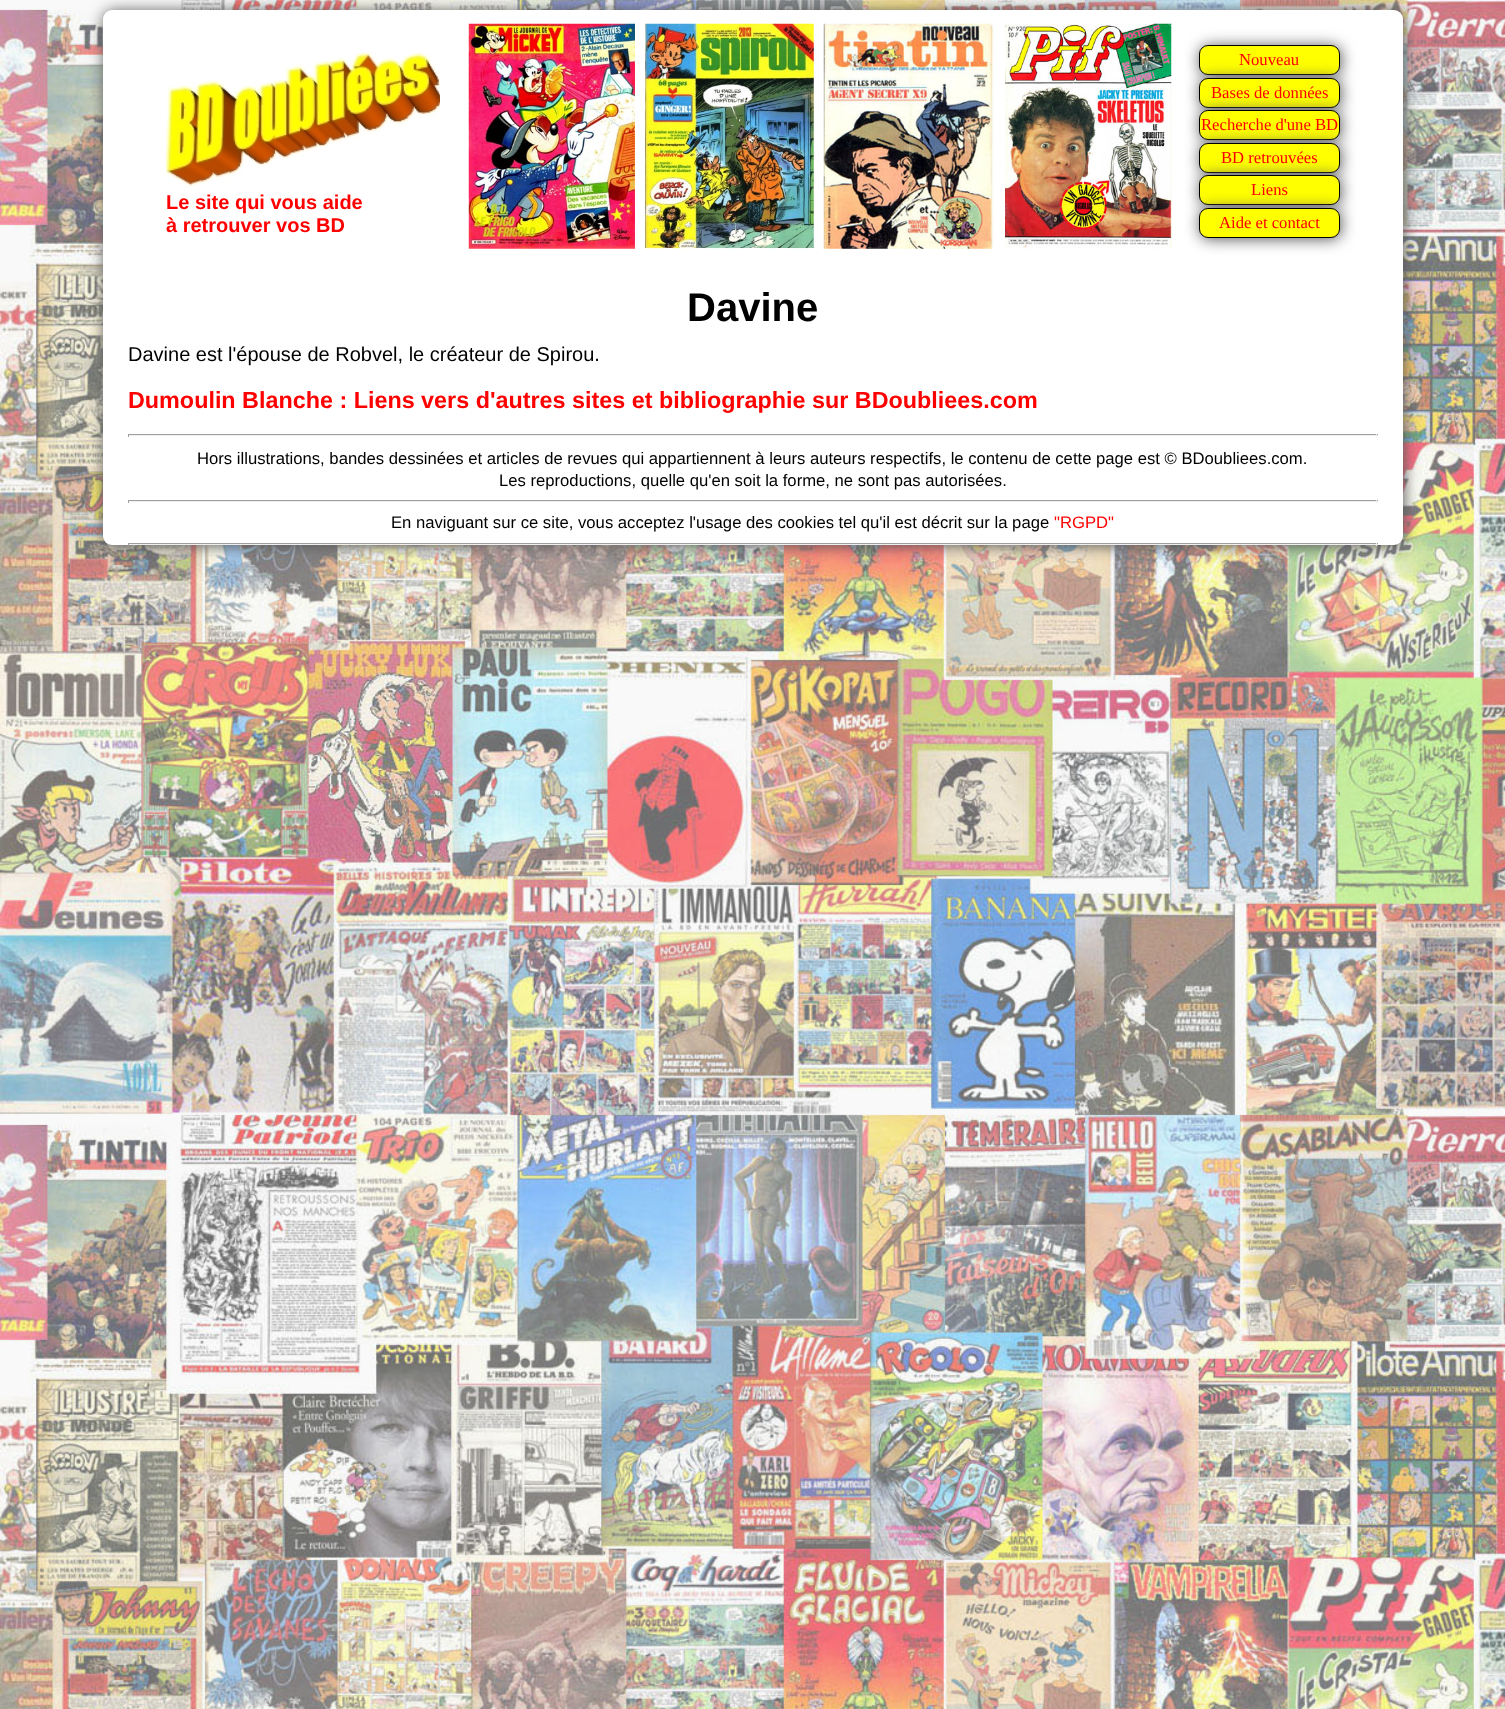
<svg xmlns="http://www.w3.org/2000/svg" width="1505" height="1709">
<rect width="100%" height="100%" fill="#fff"/>
<image x="0" y="0" width="1505" height="1709" href="media/1.png"/>
<rect x="104" y="11" width="1300" height="535" rx="9" fill="#555" filter="blur(7.5px)"/>
<rect x="103" y="10" width="1300" height="535" rx="9" fill="#fff"/>
<rect x="1200" y="46" width="141" height="30" rx="9" fill="#555" filter="blur(7.5px)"/>
<rect x="1199.5" y="45.5" width="140" height="29" rx="8.5" fill="#ff0" stroke="#000"/>
<rect x="1200" y="79" width="141" height="30" rx="9" fill="#555" filter="blur(7.5px)"/>
<text x="1239" y="65" style="font-family:Liberation Serif;font-size:16.67px;fill:#f00">Nouveau</text>
<rect x="1199.5" y="78.5" width="140" height="29" rx="8.5" fill="#ff0" stroke="#000"/>
<rect x="1200" y="111" width="141" height="30" rx="9" fill="#555" filter="blur(7.5px)"/>
<text x="1211" y="98" style="font-family:Liberation Serif;font-size:16.67px;fill:#f00">Bases de données</text>
<rect x="1199.5" y="110.5" width="140" height="29" rx="8.5" fill="#ff0" stroke="#000"/>
<rect x="1200" y="144" width="141" height="30" rx="9" fill="#555" filter="blur(7.5px)"/>
<text x="1201" y="130" style="font-family:Liberation Serif;font-size:16.67px;fill:#f00">Recherche d'une BD</text>
<rect x="1199.5" y="143.5" width="140" height="29" rx="8.5" fill="#ff0" stroke="#000"/>
<rect x="1200" y="176" width="141" height="30" rx="9" fill="#555" filter="blur(7.5px)"/>
<text x="1221" y="163" style="font-family:Liberation Serif;font-size:16.67px;fill:#f00">BD retrouvées</text>
<rect x="1199.5" y="175.5" width="140" height="29" rx="8.5" fill="#ff0" stroke="#000"/>
<rect x="1200" y="209" width="141" height="30" rx="9" fill="#555" filter="blur(7.5px)"/>
<text x="1251" y="195" style="font-family:Liberation Serif;font-size:16.67px;fill:#f00">Liens</text>
<image x="166" y="52" width="274" height="135" href="media/2.png"/>
<text x="166" y="209" style="font-family:Liberation Sans;font-size:20px;font-weight:bold;fill:#f00">Le site qui vous aide</text>
<text x="166" y="232" style="font-family:Liberation Sans;font-size:20px;font-weight:bold;fill:#f00">à retrouver vos BD</text>
<image x="468" y="23" width="704" height="226" href="media/3.png"/>
<rect x="1199.5" y="208.5" width="140" height="29" rx="8.5" fill="#ff0" stroke="#000"/>
<text x="1219" y="228" style="font-family:Liberation Serif;font-size:16.67px;fill:#f00">Aide et contact</text>
<text x="687" y="321" style="font-family:Liberation Sans;font-size:40px;font-weight:bold;fill:#000">Davine</text>
<text x="128" y="361" style="font-family:Liberation Sans;font-size:20px;fill:#000">Davine est l'épouse de Robvel, le créateur de Spirou.</text>
<text x="128" y="408" style="font-family:Liberation Sans;font-size:23.35px;font-weight:bold;fill:#f00">Dumoulin Blanche : Liens vers d'autres sites et bibliographie sur BDoubliees.com</text>
<rect x="128" y="434" width="1250" height="1" fill="#9f9f9f"/>
<rect x="1376" y="434" width="1" height="3" fill="#eee"/>
<rect x="128" y="435" width="1250" height="1" fill="#eee"/>
<rect x="128" y="434" width="1" height="3" fill="#9f9f9f"/>
<text x="197" y="464" style="font-family:Liberation Sans;font-size:16.67px;fill:#000">Hors illustrations, bandes dessinées et articles de revues qui appartiennent à leurs auteurs respectifs, le contenu de cette page est © BDoubliees.com.</text>
<text x="499" y="486" style="font-family:Liberation Sans;font-size:16.67px;fill:#000">Les reproductions, quelle qu'en soit la forme, ne sont pas autorisées.</text>
<rect x="128" y="500" width="1250" height="1" fill="#9f9f9f"/>
<rect x="1376" y="500" width="1" height="3" fill="#eee"/>
<rect x="128" y="501" width="1250" height="1" fill="#eee"/>
<rect x="128" y="500" width="1" height="3" fill="#9f9f9f"/>
<text x="391" y="528" style="font-family:Liberation Sans;font-size:16.67px;fill:#000">En naviguant sur ce site, vous acceptez l'usage des cookies tel qu'il est décrit sur la page</text>
<text x="1054" y="528" style="font-family:Liberation Sans;font-size:16.67px;fill:#f00">"RGPD"</text>
<rect x="128" y="543" width="1250" height="1" fill="#9f9f9f"/>
<rect x="1376" y="543" width="1" height="3" fill="#eee"/>
<rect x="128" y="544" width="1250" height="1" fill="#eee"/>
<rect x="128" y="543" width="1" height="3" fill="#9f9f9f"/>
</svg>
